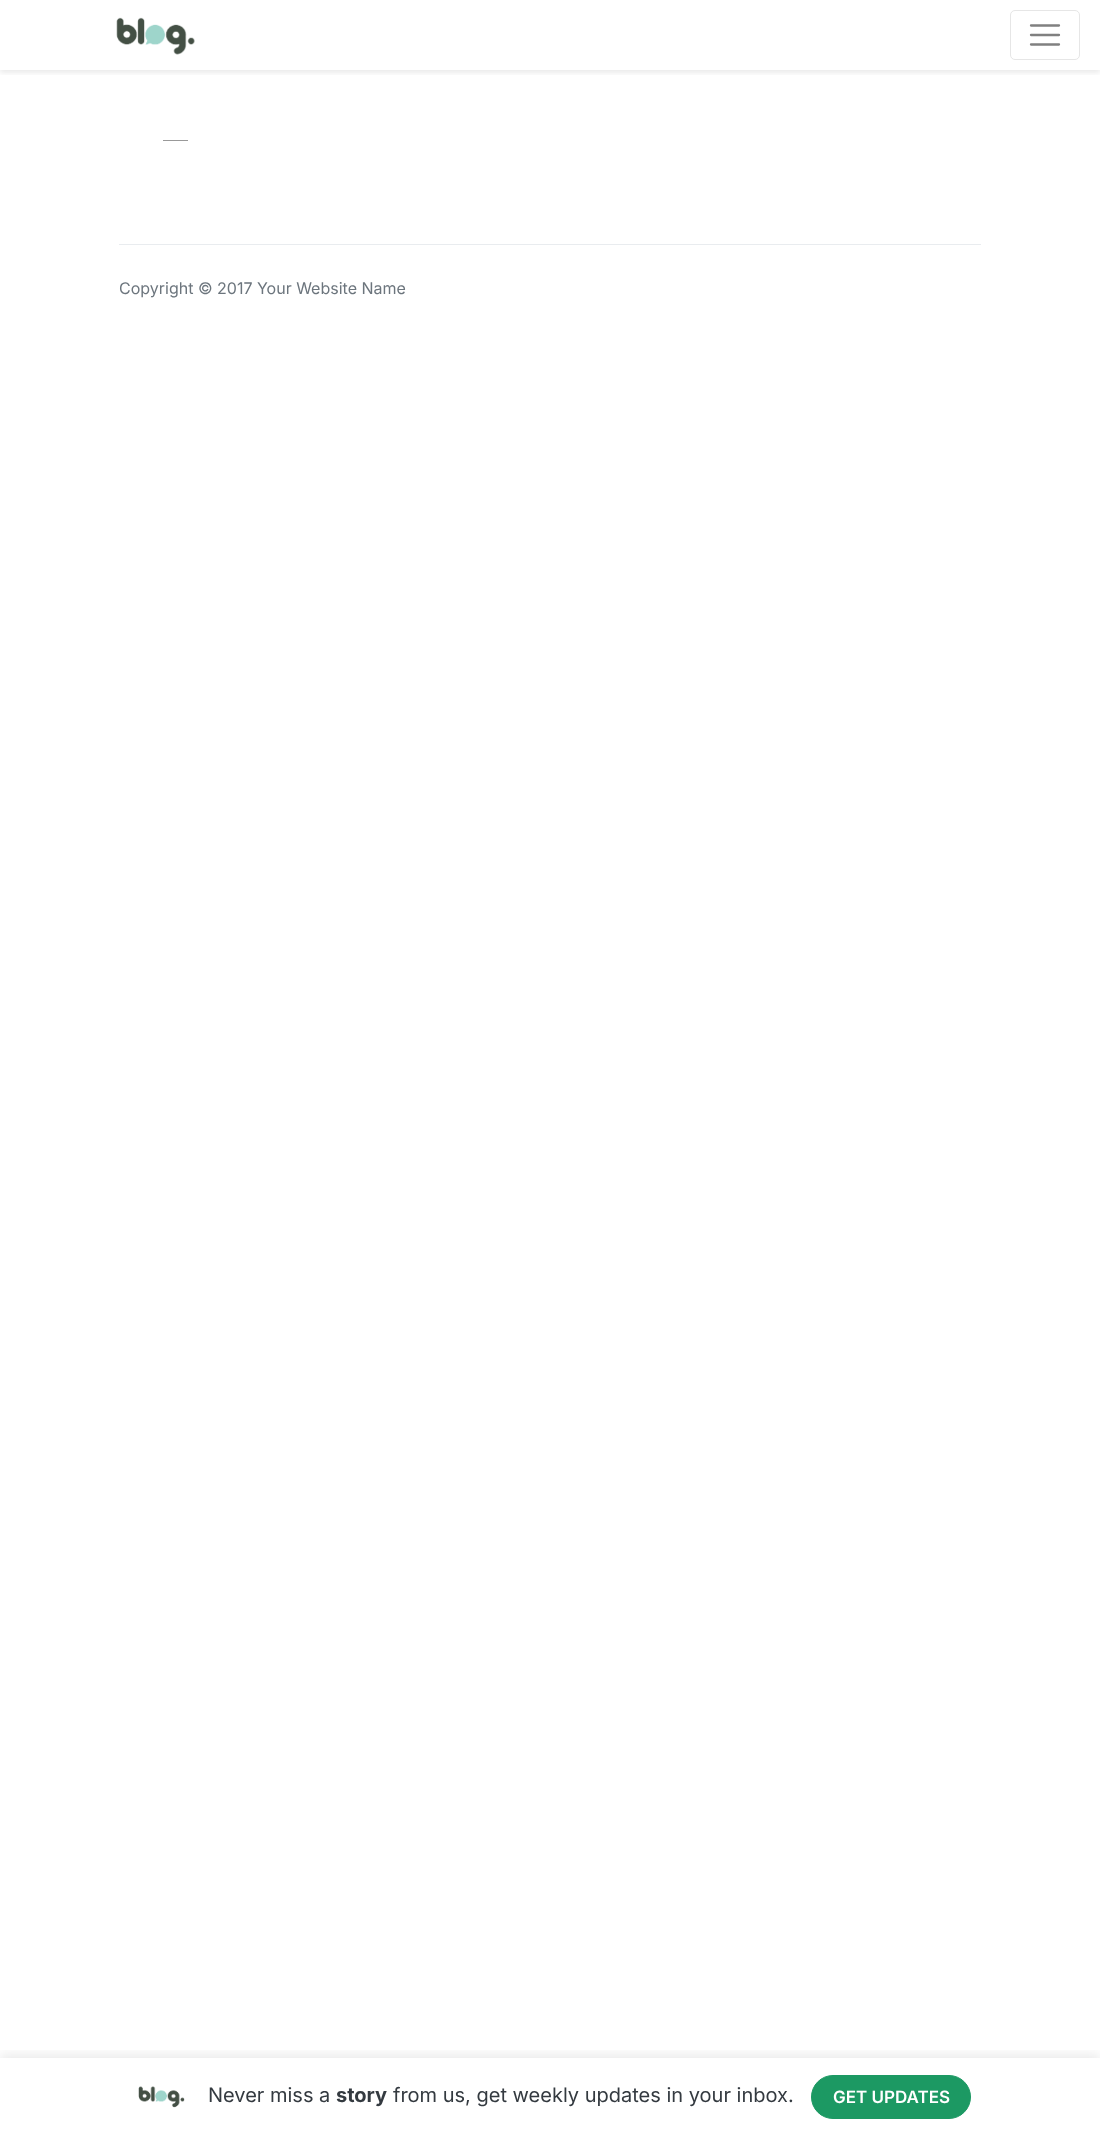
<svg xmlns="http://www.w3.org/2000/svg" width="1100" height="2136">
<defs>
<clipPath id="clip1"><rect x="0" y="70" width="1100" height="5"/></clipPath>
<clipPath id="clip2"><rect x="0" y="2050" width="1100" height="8"/></clipPath>
</defs>
<rect width="100%" height="100%" fill="#fff"/>
<g clip-path="url(#clip1)">
<rect y="3" width="1100" height="70" fill="#00000014" filter="blur(2.5px)"/>
</g>
<image x="116" y="17" width="79" height="38" href="media/1.png"/>
<rect x="1010.5" y="10.5" width="69" height="49" rx="4.5" fill="none" stroke="#e6e6e6"/>
<path d="M1031 25.5h28m-28 9.5h28m-28 9.5h28" fill="none" stroke="#808080" stroke-width="2.3" stroke-linecap="round"/>
<rect x="163" y="140" width="25" height="1" fill="#999"/>
<rect x="119" y="244" width="862" height="1" fill="#e9ecef"/>
<text x="119" y="294" style="font-family:Inter;font-size:16px;fill:#6c757d">Copyright © 2017 Your Website Name</text>
<g clip-path="url(#clip2)">
<rect y="2054" width="1100" height="79" fill="#00000014" filter="blur(6px)"/>
</g>
<image x="138" y="2086" width="47" height="22" href="media/2.png"/>
<text x="208" y="2102" style="font-family:Inter;font-size:20px;fill:#343a40">Never miss a</text>
<text x="336" y="2102" style="font-family:Inter;font-size:20px;font-weight:bold;fill:#343a40">story</text>
<text x="393" y="2102" style="font-family:Inter;font-size:20px;fill:#343a40">from us, get weekly updates in your inbox.</text>
<rect x="811.5" y="2075.5" width="159" height="43" rx="21.5" fill="#1c9963" stroke="#1c9963"/>
<text x="833" y="2103" style="font-family:Inter;font-size:17px;font-weight:600;fill:#fff">GET UPDATES</text>
</svg>
